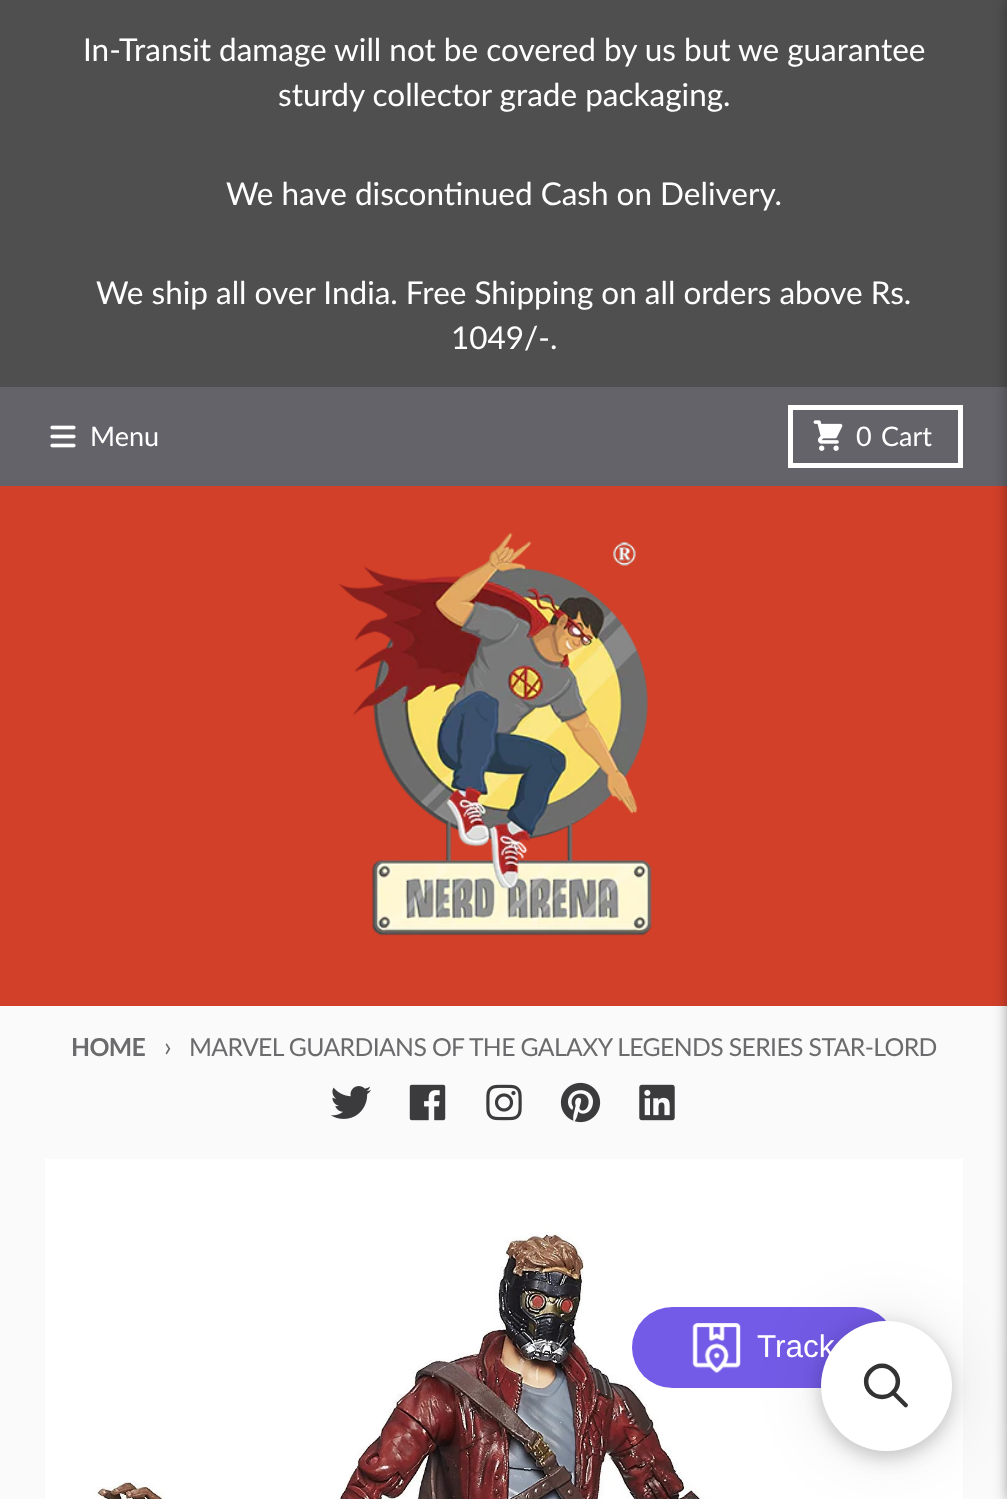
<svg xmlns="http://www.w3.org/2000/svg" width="1007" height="1499">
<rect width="100%" height="100%" fill="#fafafa"/>
<rect width="1007" height="387" fill="#4f4f4f"/>
<text x="83" y="61" style="font-family:Lato;font-size:31.5px;fill:#fff">In-Transit damage will not be covered by us but we guarantee</text>
<text x="278" y="106" style="font-family:Lato;font-size:31.5px;fill:#fff">sturdy collector grade packaging.</text>
<text x="226" y="205" style="font-family:Lato;font-size:31.5px;fill:#fff">We have discontinued Cash on Delivery.</text>
<text x="96" y="304" style="font-family:Lato;font-size:31.5px;fill:#fff">We ship all over India. Free Shipping on all orders above Rs.</text>
<text x="451" y="349" style="font-family:Lato;font-size:31.5px;fill:#fff">1049/-.</text>
<rect y="387" width="1007" height="99" fill="#65636a"/>
<rect y="486" width="1007" height="520" fill="#d24029"/>
<rect x="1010" width="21" height="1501" fill="#00000080" filter="blur(8px)"/>
<image x="50" y="425" width="26" height="23" href="media/1.png"/>
<text x="90" y="446" style="font-family:Lato;font-size:27px;fill:#fff">Menu</text>
<rect x="790.5" y="407.5" width="170" height="58" fill="none" stroke="#fff" stroke-width="5"/>
<image x="813" y="420" width="30" height="31" href="media/2.png"/>
<text x="856" y="446" style="font-family:Lato;font-size:27px;fill:#fff">0</text>
<text x="881" y="446" style="font-family:Lato;font-size:27px;fill:#fff">Cart</text>
<image x="338" y="533" width="314" height="403" href="media/3.png"/>
<text x="71" y="1056" style="font-family:Lato;font-size:24.75px;font-weight:bold;letter-spacing:-0.62px;fill:#6b6a6c">HOME</text>
<text x="164" y="1056" style="font-family:Lato;font-size:27px;letter-spacing:-0.62px;fill:#6b6a6c">›</text>
<text x="189" y="1056" style="font-family:Lato;font-size:24.75px;letter-spacing:-0.62px;fill:#6b6a6c">MARVEL GUARDIANS OF THE GALAXY LEGENDS SERIES STAR-LORD</text>
<image x="331" y="1086" width="40" height="33" href="media/4.png"/>
<image x="409" y="1084" width="37" height="37" href="media/5.png"/>
<image x="486" y="1084" width="36" height="37" href="media/6.png"/>
<image x="560" y="1082" width="41" height="41" href="media/7.png"/>
<image x="639" y="1084" width="36" height="37" href="media/8.png"/>
<image x="45" y="1159" width="918" height="340" href="media/9.png"/>
<rect x="632" y="1307" width="264" height="81" rx="40.5" fill="#745be7"/>
<rect x="821" y="1330" width="131" height="130" rx="65" fill="#0000000d" filter="blur(9px)"/>
<rect x="821" y="1325" width="131" height="131" rx="65.5" fill="#00000026" filter="blur(9px)"/>
<image x="692" y="1323" width="49" height="50" href="media/10.png"/>
<rect x="821" y="1321" width="131" height="130" rx="65" fill="#0000001a" filter="blur(34px)"/>
<rect x="821" y="1321" width="131" height="130" rx="65" fill="#fff"/>
<path d="M871 1370.5c6-6.5 16-6.5 22 0c6.5 6 6.5 16 0 22c-6 6-16 6-22 0c-6.5-6-6.5-16 0-22z" fill="none" stroke="#333" stroke-width="4.5"/>
<path d="M891.5 1394l3-3l13 13c1.5 2-1.5 4.5-3 3z" fill="#333"/>
<text x="757" y="1357" style="font-family:Liberation Sans;font-size:31.5px;fill:#fff">Track</text>
</svg>
